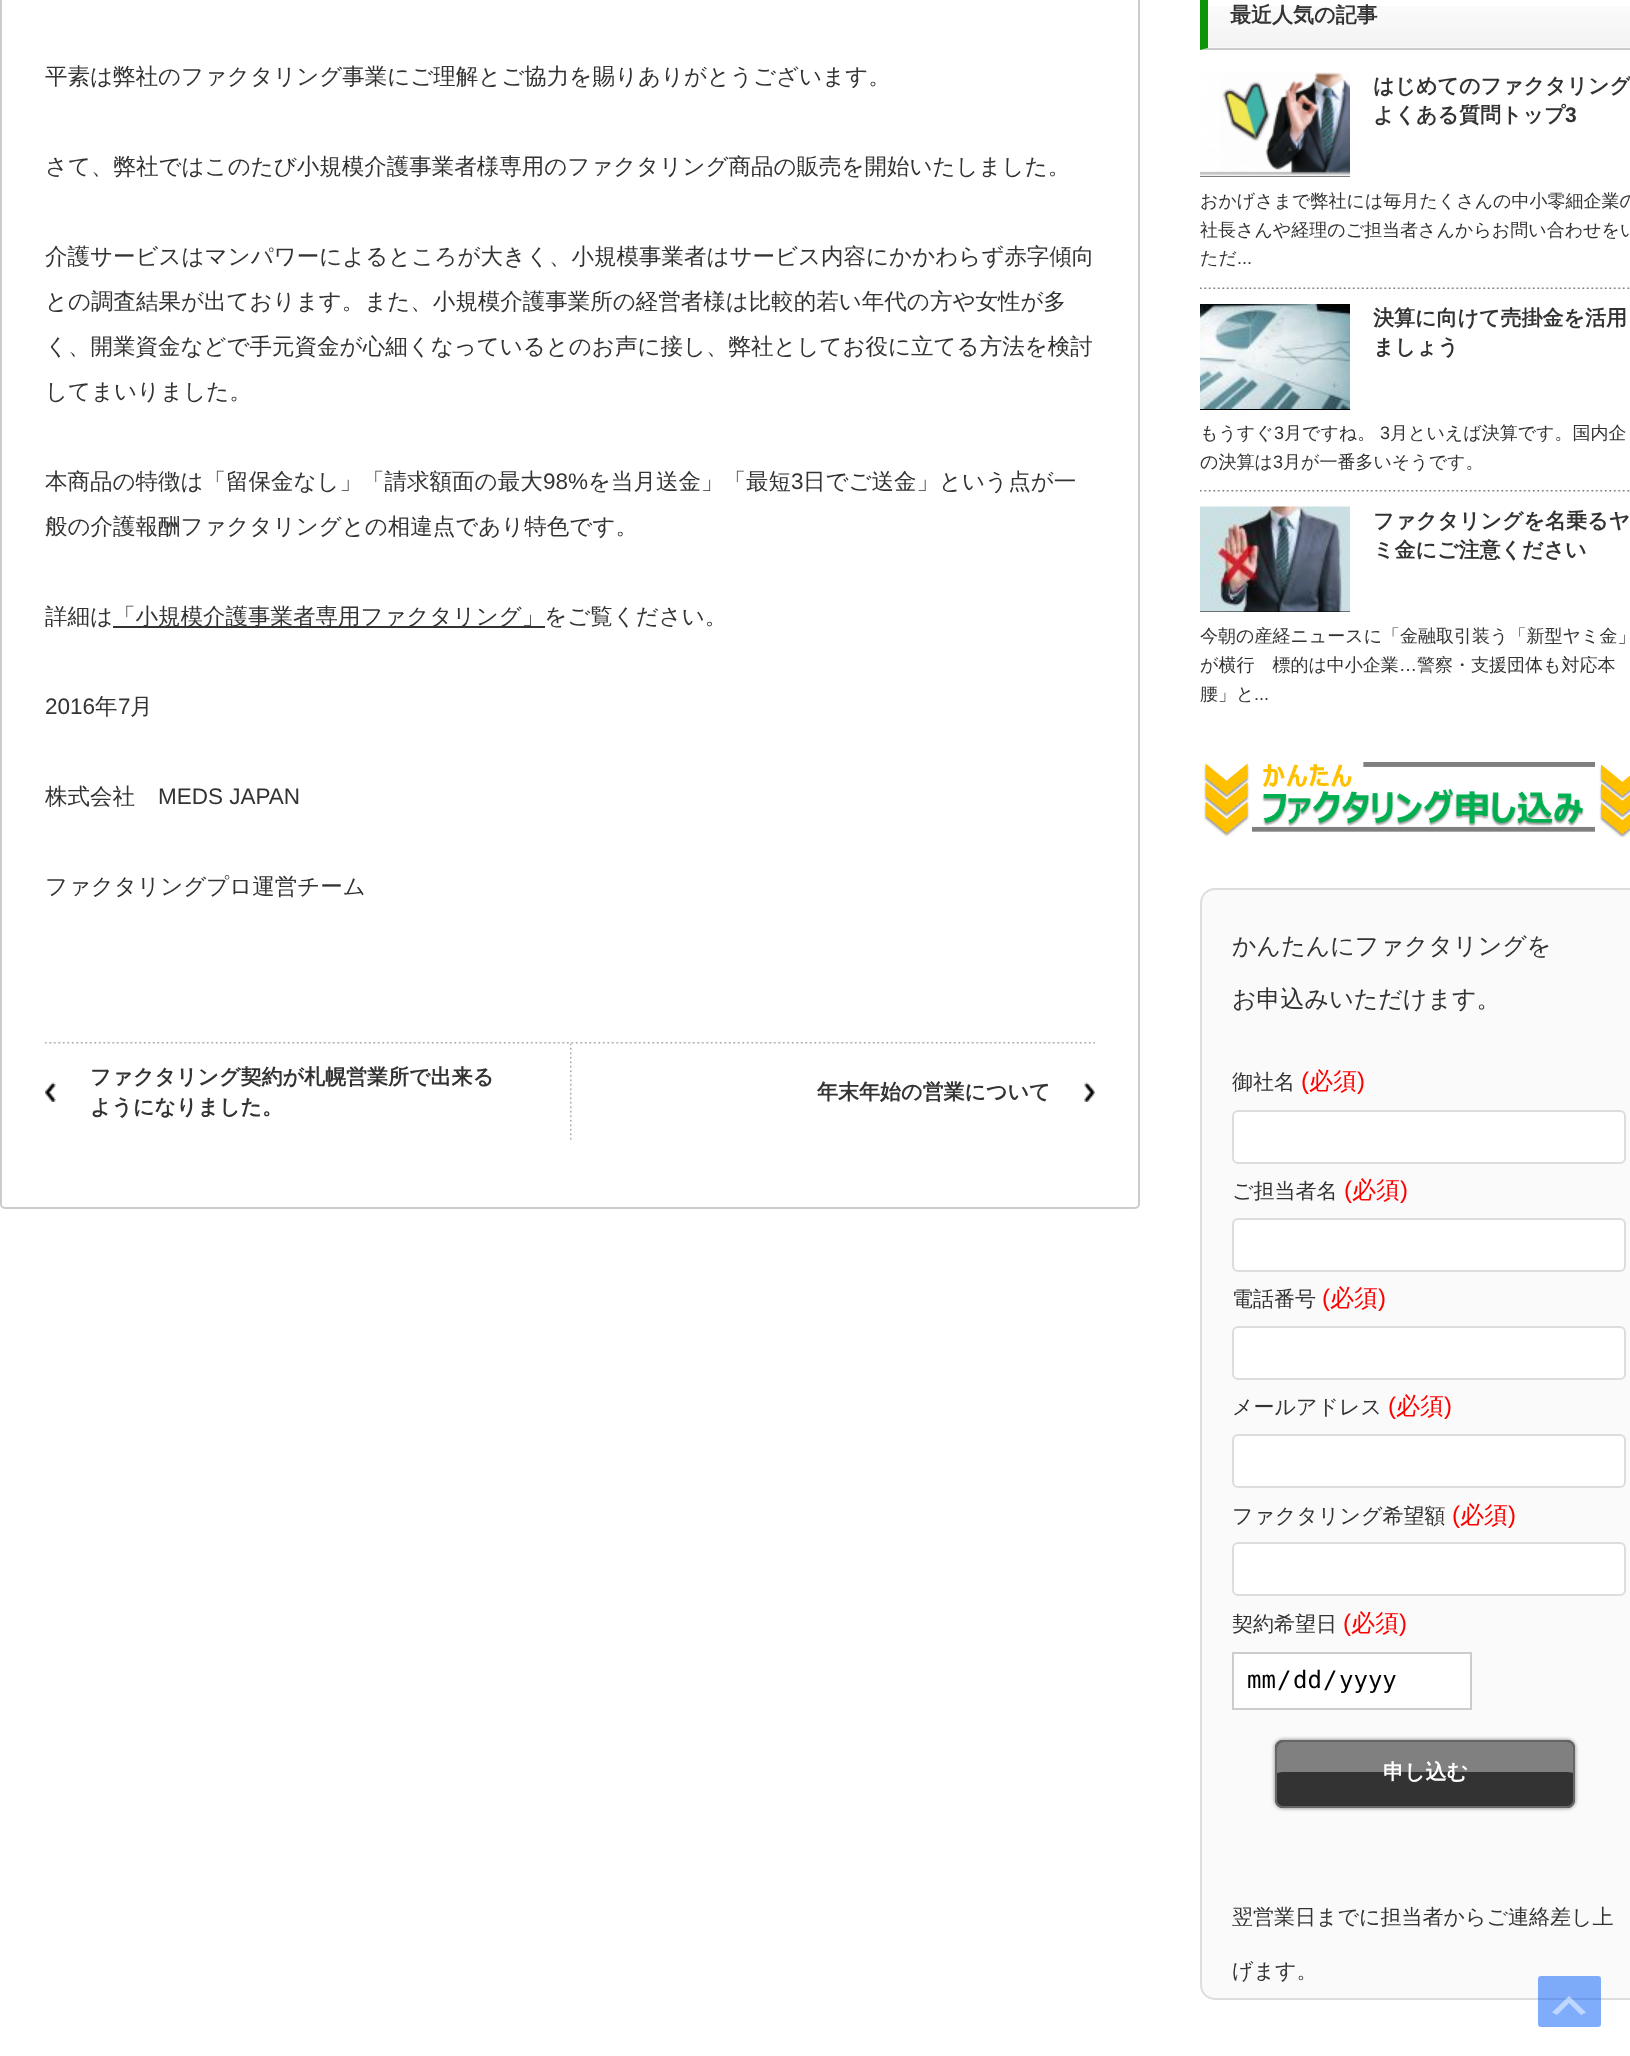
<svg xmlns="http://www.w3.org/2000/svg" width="1630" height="2056">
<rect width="100%" height="100%" fill="#fff"/>
<rect x="1" y="-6" width="1138" height="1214" rx="4" fill="none" stroke="#ccc" stroke-width="2"/>
<image x="45" y="1042" width="1050" height="2" href="media/1.png"/>
<text x="45" y="84" style="font-family:WenQuanYi Zen Hei;font-size:22.5px;font-weight:500;fill:#333">平素は弊社のファクタリング事業にご理解とご協力を賜りありがとうございます。</text>
<text x="45" y="174" style="font-family:WenQuanYi Zen Hei;font-size:22.5px;font-weight:500;fill:#333">さて、弊社ではこのたび小規模介護事業者様専用のファクタリング商品の販売を開始いたしました。</text>
<text x="45" y="264" style="font-family:WenQuanYi Zen Hei;font-size:22.5px;font-weight:500;fill:#333">介護サービスはマンパワーによるところが大きく、小規模事業者はサービス内容にかかわらず赤字傾向</text>
<text x="45" y="309" style="font-family:WenQuanYi Zen Hei;font-size:22.5px;font-weight:500;fill:#333">との調査結果が出ております。また、小規模介護事業所の経営者様は比較的若い年代の方や女性が多</text>
<text x="45" y="354" style="font-family:WenQuanYi Zen Hei;font-size:22.5px;font-weight:500;fill:#333">く、開業資金などで手元資金が心細くなっているとのお声に接し、弊社としてお役に立てる方法を検討</text>
<text x="45" y="399" style="font-family:WenQuanYi Zen Hei;font-size:22.5px;font-weight:500;fill:#333">してまいりました。</text>
<text x="45" y="489" style="font-family:WenQuanYi Zen Hei;font-size:22.5px;font-weight:500;fill:#333">本商品の特徴は「留保金なし」「請求額面の最大</text>
<text x="543" y="489" style="font-family:Liberation Sans;font-size:22.5px;fill:#333">98%</text>
<text x="588" y="489" style="font-family:WenQuanYi Zen Hei;font-size:22.5px;font-weight:500;fill:#333">を当月送金」「最短</text>
<text x="791" y="489" style="font-family:Liberation Sans;font-size:22.5px;fill:#333">3</text>
<text x="803" y="489" style="font-family:WenQuanYi Zen Hei;font-size:22.5px;font-weight:500;fill:#333">日でご送金」という点が一</text>
<text x="45" y="534" style="font-family:WenQuanYi Zen Hei;font-size:22.5px;font-weight:500;fill:#333">般の介護報酬ファクタリングとの相違点であり特色です。</text>
<text x="45" y="624" style="font-family:WenQuanYi Zen Hei;font-size:22.5px;font-weight:500;fill:#333">詳細は</text>
<rect x="113" y="626" width="432" height="2" fill="#333"/>
<text x="113" y="624" style="font-family:WenQuanYi Zen Hei;font-size:22.5px;font-weight:500;fill:#333">「小規模介護事業者専用ファクタリング」をご覧ください。</text>
<text x="45" y="714" style="font-family:Liberation Sans;font-size:22.5px;fill:#333">2016</text>
<text x="95" y="714" style="font-family:WenQuanYi Zen Hei;font-size:22.5px;font-weight:500;fill:#333">年</text>
<text x="118" y="714" style="font-family:Liberation Sans;font-size:22.5px;fill:#333">7</text>
<text x="130" y="714" style="font-family:WenQuanYi Zen Hei;font-size:22.5px;font-weight:500;fill:#333">月</text>
<text x="45" y="804" style="font-family:WenQuanYi Zen Hei;font-size:22.5px;font-weight:500;fill:#333">株式会社</text>
<text x="158" y="804" style="font-family:Liberation Sans;font-size:22.5px;fill:#333">MEDS JAPAN</text>
<text x="45" y="894" style="font-family:WenQuanYi Zen Hei;font-size:22.5px;font-weight:500;fill:#333">ファクタリングプロ運営チーム</text>
<image x="570" y="1043" width="2" height="97" href="media/2.png"/>
<image x="45" y="1082" width="11" height="20" href="media/3.png"/>
<text x="90" y="1084" style="font-family:WenQuanYi Zen Hei;font-size:21px;font-weight:bold;fill:#333">ファクタリング契約が札幌営業所で出来る</text>
<text x="90" y="1114" style="font-family:WenQuanYi Zen Hei;font-size:21px;font-weight:bold;fill:#333">ようになりました。</text>
<image x="1084" y="1082" width="11" height="20" href="media/4.png"/>
<text x="817" y="1099" style="font-family:WenQuanYi Zen Hei;font-size:21px;font-weight:bold;fill:#333">年末年始の営業について</text>
<image x="1208" y="6" width="422" height="42" href="media/5.png"/>
<path d="M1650 50h-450l8-2h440z" fill="#ccc"/>
<path d="M1200 50v-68l8 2v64z" fill="#0e9409"/>
<text x="1230" y="22" style="font-family:WenQuanYi Zen Hei;font-size:21px;font-weight:bold;fill:#333">最近人気の記事</text>
<image x="1200" y="287" width="430" height="2" href="media/6.png"/>
<rect x="1200" y="176" width="150" height="1" fill="#000"/>
<image x="1200" y="72" width="150" height="105" href="media/7.png"/>
<text x="1373" y="93" style="font-family:WenQuanYi Zen Hei;font-size:21px;font-weight:bold;fill:#333">はじめてのファクタリング</text>
<text x="1373" y="122" style="font-family:WenQuanYi Zen Hei;font-size:21px;font-weight:bold;fill:#333">よくある質問トップ</text>
<text x="1565" y="122" style="font-family:Liberation Sans;font-size:21px;font-weight:bold;fill:#333">3</text>
<text x="1200" y="207" style="font-family:WenQuanYi Zen Hei;font-size:18px;font-weight:500;fill:#333">おかげさまで弊社には毎月たくさんの中小零細企業の</text>
<text x="1200" y="236" style="font-family:WenQuanYi Zen Hei;font-size:18px;font-weight:500;fill:#333">社長さんや経理のご担当者さんからお問い合わせをい</text>
<text x="1200" y="264" style="font-family:WenQuanYi Zen Hei;font-size:18px;font-weight:500;fill:#333">ただ</text>
<text x="1237" y="264" style="font-family:Liberation Sans;font-size:18px;fill:#333">...</text>
<image x="1200" y="490" width="430" height="2" href="media/8.png"/>
<rect x="1200" y="409" width="150" height="1" fill="#000"/>
<image x="1200" y="304" width="150" height="105" href="media/9.png"/>
<text x="1373" y="325" style="font-family:WenQuanYi Zen Hei;font-size:21px;font-weight:bold;fill:#333">決算に向けて売掛金を活用</text>
<text x="1373" y="354" style="font-family:WenQuanYi Zen Hei;font-size:21px;font-weight:bold;fill:#333">ましょう</text>
<text x="1200" y="439" style="font-family:WenQuanYi Zen Hei;font-size:18px;font-weight:500;fill:#333">もうすぐ</text>
<text x="1274" y="439" style="font-family:Liberation Sans;font-size:18px;fill:#333">3</text>
<text x="1284" y="439" style="font-family:WenQuanYi Zen Hei;font-size:18px;font-weight:500;fill:#333">月ですね。</text>
<text x="1380" y="439" style="font-family:Liberation Sans;font-size:18px;fill:#333">3</text>
<text x="1390" y="439" style="font-family:WenQuanYi Zen Hei;font-size:18px;font-weight:500;fill:#333">月といえば決算です。国内企</text>
<text x="1200" y="468" style="font-family:WenQuanYi Zen Hei;font-size:18px;font-weight:500;fill:#333">の決算は</text>
<text x="1273" y="468" style="font-family:Liberation Sans;font-size:18px;fill:#333">3</text>
<text x="1283" y="468" style="font-family:WenQuanYi Zen Hei;font-size:18px;font-weight:500;fill:#333">月が一番多いそうです。</text>
<rect x="1200" y="611" width="150" height="1" fill="#000"/>
<image x="1200" y="506" width="150" height="106" href="media/10.png"/>
<text x="1373" y="528" style="font-family:WenQuanYi Zen Hei;font-size:21px;font-weight:bold;fill:#333">ファクタリングを名乗るヤ</text>
<text x="1373" y="557" style="font-family:WenQuanYi Zen Hei;font-size:21px;font-weight:bold;fill:#333">ミ金にご注意ください</text>
<text x="1200" y="642" style="font-family:WenQuanYi Zen Hei;font-size:18px;font-weight:500;fill:#333">今朝の産経ニュースに「金融取引装う「新型ヤミ金」</text>
<text x="1200" y="671" style="font-family:WenQuanYi Zen Hei;font-size:18px;font-weight:500;fill:#333">が横行　標的は中小企業</text>
<text x="1399" y="671" style="font-family:Liberation Sans;font-size:18px;fill:#333">…</text>
<text x="1417" y="671" style="font-family:WenQuanYi Zen Hei;font-size:18px;font-weight:500;fill:#333">警察・支援団体も対応本</text>
<text x="1200" y="700" style="font-family:WenQuanYi Zen Hei;font-size:18px;font-weight:500;fill:#333">腰」と</text>
<text x="1254" y="700" style="font-family:Liberation Sans;font-size:18px;fill:#333">...</text>
<image x="1204" y="762" width="426" height="76" href="media/11.png"/>
<rect x="1201" y="889" width="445" height="1110" rx="14" fill="#fafafa" stroke="#ddd" stroke-width="2"/>
<text x="1232" y="954" style="font-family:WenQuanYi Zen Hei;font-size:24px;font-weight:500;fill:#333">かんたんにファクタリングを</text>
<text x="1232" y="1007" style="font-family:WenQuanYi Zen Hei;font-size:24px;font-weight:500;fill:#333">お申込みいただけます。</text>
<text x="1232" y="1089" style="font-family:WenQuanYi Zen Hei;font-size:21px;font-weight:500;fill:#333">御社名</text>
<text x="1301" y="1089" style="font-family:Liberation Sans;font-size:24px;fill:#f00">(</text>
<text x="1309" y="1089" style="font-family:WenQuanYi Zen Hei;font-size:24px;font-weight:500;fill:#f00">必須</text>
<text x="1357" y="1089" style="font-family:Liberation Sans;font-size:24px;fill:#f00">)</text>
<rect x="1233" y="1111" width="392" height="52" rx="5" fill="#fff" stroke="#ddd" stroke-width="2"/>
<text x="1232" y="1198" style="font-family:WenQuanYi Zen Hei;font-size:21px;font-weight:500;fill:#333">ご担当者名</text>
<text x="1344" y="1198" style="font-family:Liberation Sans;font-size:24px;fill:#f00">(</text>
<text x="1352" y="1198" style="font-family:WenQuanYi Zen Hei;font-size:24px;font-weight:500;fill:#f00">必須</text>
<text x="1400" y="1198" style="font-family:Liberation Sans;font-size:24px;fill:#f00">)</text>
<rect x="1233" y="1219" width="392" height="52" rx="5" fill="#fff" stroke="#ddd" stroke-width="2"/>
<text x="1232" y="1306" style="font-family:WenQuanYi Zen Hei;font-size:21px;font-weight:500;fill:#333">電話番号</text>
<text x="1322" y="1306" style="font-family:Liberation Sans;font-size:24px;fill:#f00">(</text>
<text x="1330" y="1306" style="font-family:WenQuanYi Zen Hei;font-size:24px;font-weight:500;fill:#f00">必須</text>
<text x="1378" y="1306" style="font-family:Liberation Sans;font-size:24px;fill:#f00">)</text>
<rect x="1233" y="1327" width="392" height="52" rx="5" fill="#fff" stroke="#ddd" stroke-width="2"/>
<text x="1232" y="1414" style="font-family:WenQuanYi Zen Hei;font-size:21px;font-weight:500;fill:#333">メールアドレス</text>
<text x="1388" y="1414" style="font-family:Liberation Sans;font-size:24px;fill:#f00">(</text>
<text x="1396" y="1414" style="font-family:WenQuanYi Zen Hei;font-size:24px;font-weight:500;fill:#f00">必須</text>
<text x="1444" y="1414" style="font-family:Liberation Sans;font-size:24px;fill:#f00">)</text>
<rect x="1233" y="1435" width="392" height="52" rx="5" fill="#fff" stroke="#ddd" stroke-width="2"/>
<text x="1232" y="1523" style="font-family:WenQuanYi Zen Hei;font-size:21px;font-weight:500;fill:#333">ファクタリング希望額</text>
<text x="1452" y="1523" style="font-family:Liberation Sans;font-size:24px;fill:#f00">(</text>
<text x="1460" y="1523" style="font-family:WenQuanYi Zen Hei;font-size:24px;font-weight:500;fill:#f00">必須</text>
<text x="1508" y="1523" style="font-family:Liberation Sans;font-size:24px;fill:#f00">)</text>
<rect x="1233" y="1543" width="392" height="52" rx="5" fill="#fff" stroke="#ddd" stroke-width="2"/>
<text x="1232" y="1631" style="font-family:WenQuanYi Zen Hei;font-size:21px;font-weight:500;fill:#333">契約希望日</text>
<text x="1343" y="1631" style="font-family:Liberation Sans;font-size:24px;fill:#f00">(</text>
<text x="1351" y="1631" style="font-family:WenQuanYi Zen Hei;font-size:24px;font-weight:500;fill:#f00">必須</text>
<text x="1399" y="1631" style="font-family:Liberation Sans;font-size:24px;fill:#f00">)</text>
<rect x="1233" y="1653" width="238" height="56" fill="#fff" stroke="#ccc" stroke-width="2"/>
<text x="1247" y="1688" style="font-family:DejaVu Sans Mono;font-size:24px;fill:#000">mm</text>
<text x="1277" y="1688" style="font-family:DejaVu Sans Mono;font-size:24px;fill:#000">/</text>
<text x="1293" y="1688" style="font-family:DejaVu Sans Mono;font-size:24px;fill:#000">dd</text>
<text x="1323" y="1688" style="font-family:DejaVu Sans Mono;font-size:24px;fill:#000">/</text>
<text x="1339" y="1688" style="font-family:DejaVu Sans Mono;font-size:24px;fill:#000">yyyy</text>
<rect x="1275" y="1740" width="300" height="68" rx="8" fill="#00000080" filter="blur(2px)"/>
<rect x="1275" y="1740" width="300" height="68" rx="8" fill="#333"/>
<path d="M1282 1772h286l6 1v-25c0-3-3-6-6-6h-285c-3 0-6 3-6 6v25z" fill="#808080"/>
<rect x="1276" y="1741" width="298" height="66" rx="7" fill="none" stroke="#666" stroke-width="2"/>
<text x="1383" y="1779" style="font-family:WenQuanYi Zen Hei;font-size:21px;font-weight:bold;fill:#fff">申し込む</text>
<text x="1232" y="1924" style="font-family:WenQuanYi Zen Hei;font-size:21px;font-weight:500;fill:#333">翌営業日までに担当者からご連絡差し上</text>
<text x="1232" y="1978" style="font-family:WenQuanYi Zen Hei;font-size:21px;font-weight:500;fill:#333">げます。</text>
<rect x="1538" y="1976" width="63" height="51" rx="3" fill="#005bf980"/>
<path d="M1581 2015l-12-12l-12 12l-5-2.5l17-16.5l17 16.5z" fill="#ffffff80"/>
</svg>
